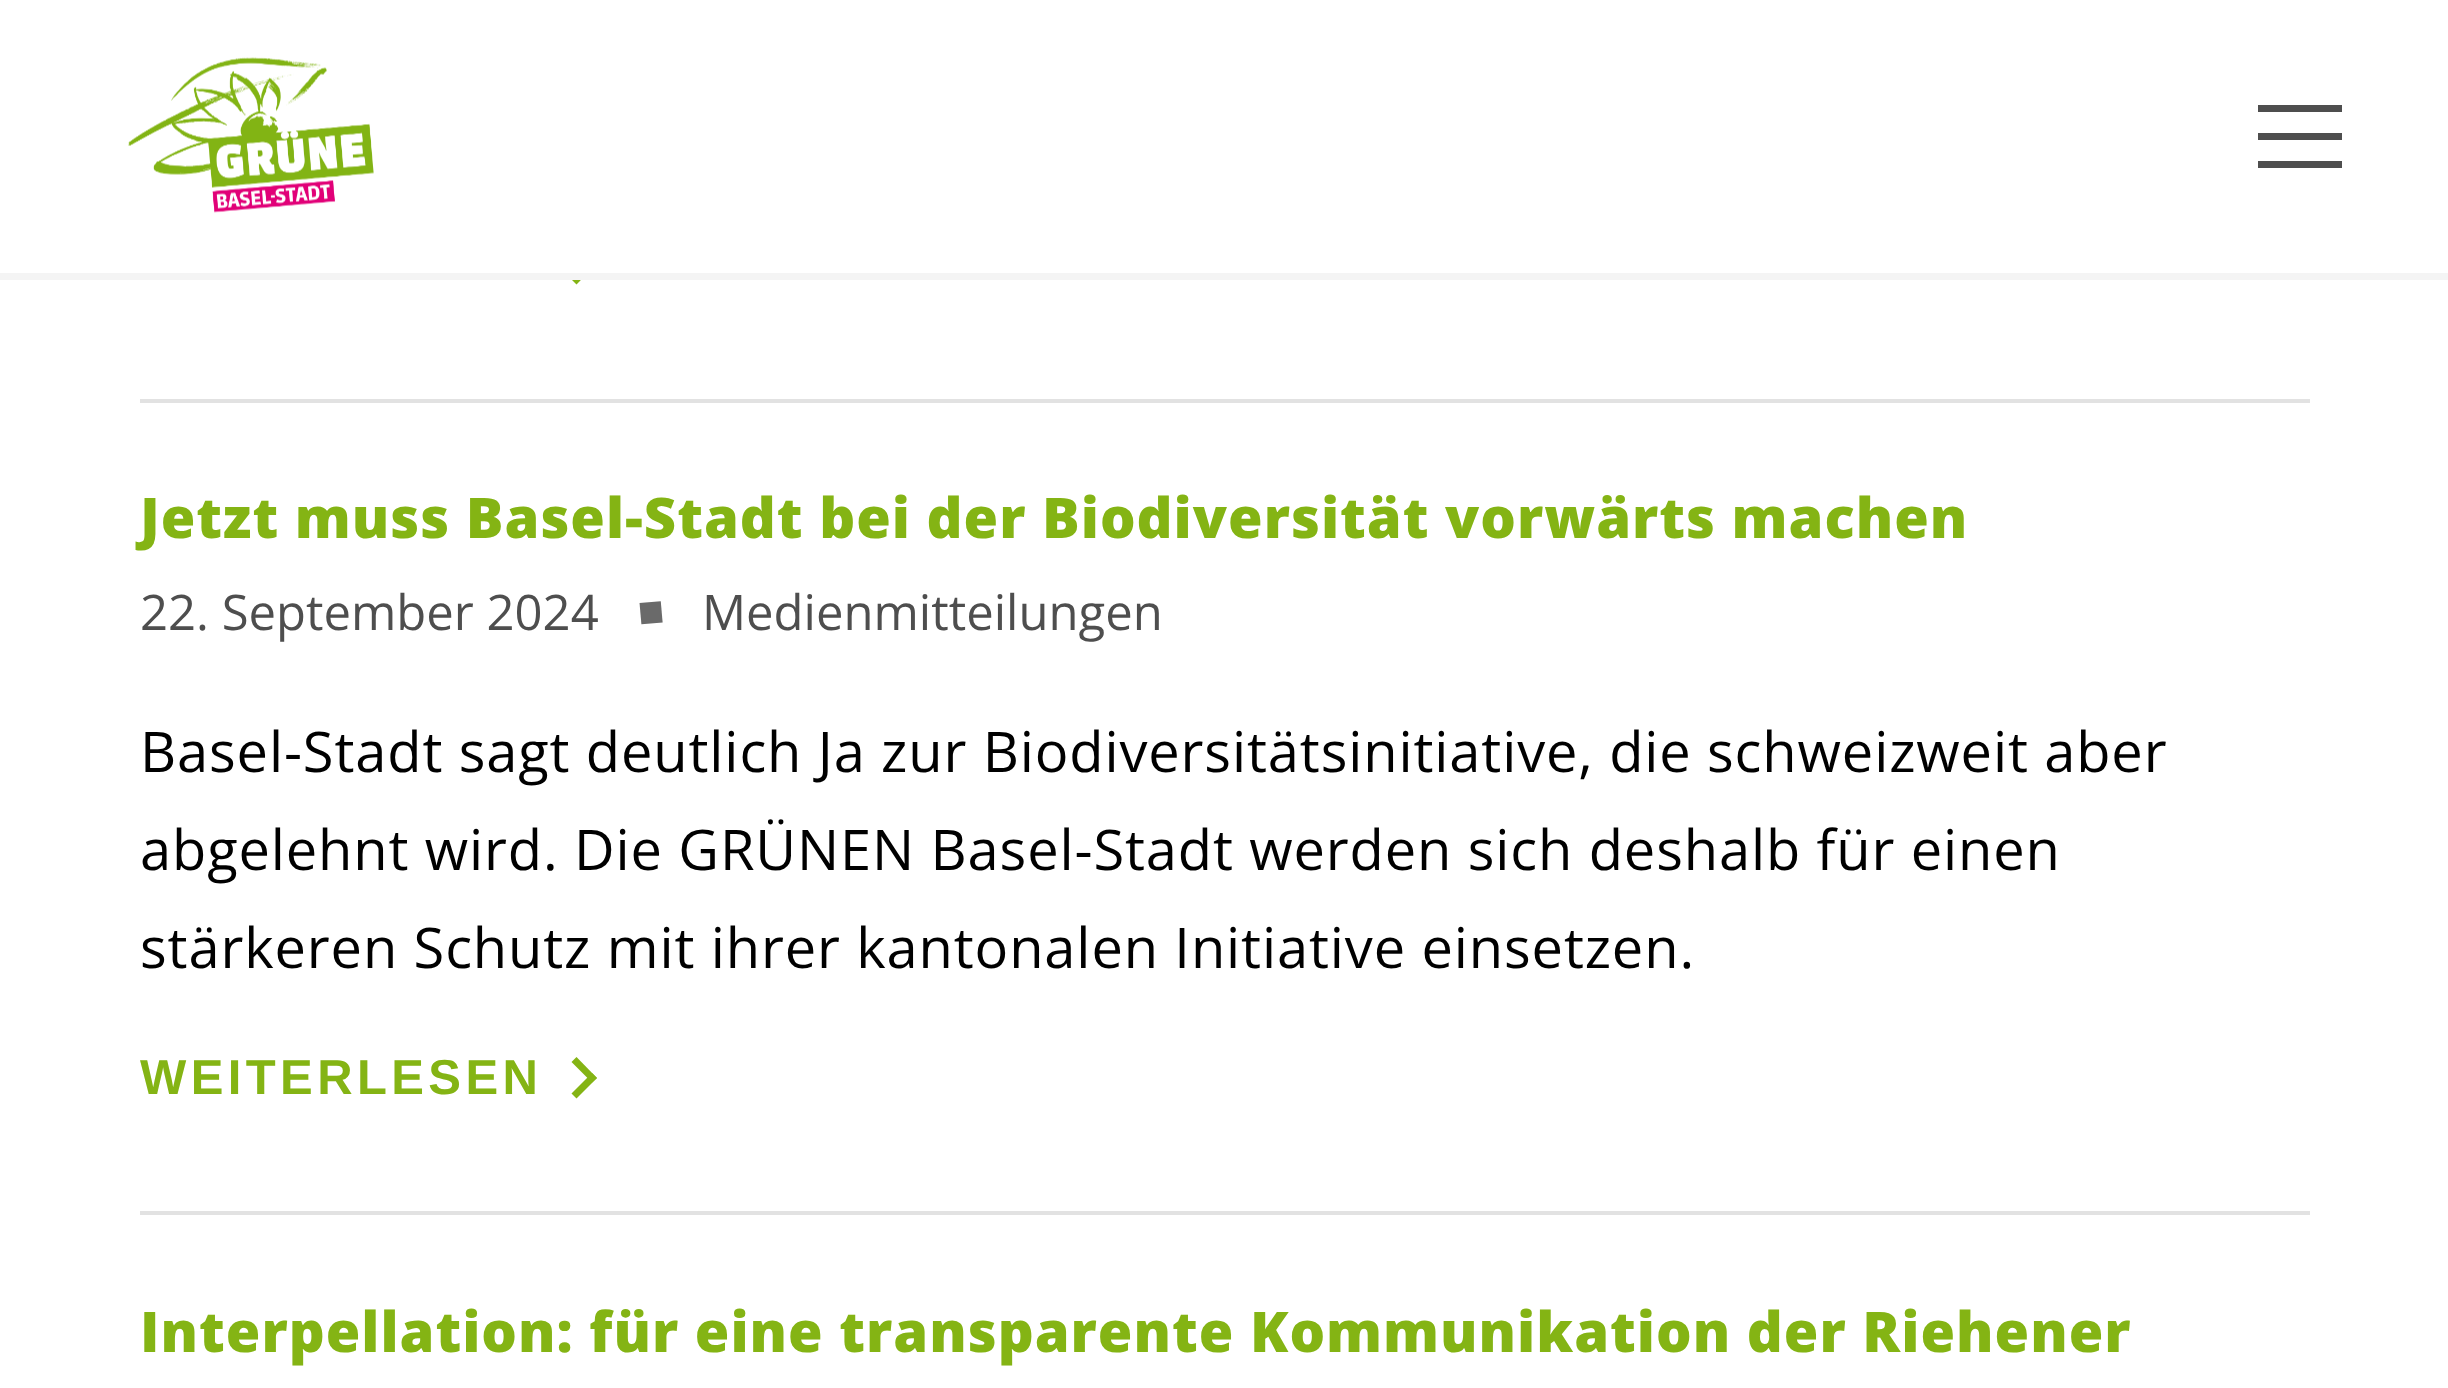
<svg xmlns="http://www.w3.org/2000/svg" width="2448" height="1388">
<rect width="100%" height="100%" fill="#fff"/>
<path d="M592 259l5 4.5l-20.5 21l-5-5z" fill="#84b414"/>
<rect x="578" y="259" width="19" height="14" fill="#fff"/>
<rect y="273" width="2448" height="7" fill="#f4f4f4"/>
<image x="128" y="57" width="246" height="156" href="media/1.png"/>
<rect x="2258" y="133" width="84" height="7" fill="#4e4e4e"/>
<rect x="2258" y="105" width="84" height="7" fill="#4e4e4e"/>
<rect x="2258" y="161" width="84" height="7" fill="#4e4e4e"/>
<rect x="140" y="399" width="2170" height="4" fill="#e2e2e2"/>
<rect x="140" y="1211" width="2170" height="4" fill="#e2e2e2"/>
<text x="140" y="538" style="font-family:Open Sans;font-size:56px;font-weight:800;letter-spacing:1px;fill:#84b414">Jetzt muss Basel-Stadt bei der Biodiversität vorwärts machen</text>
<text x="140" y="630" style="font-family:Open Sans;font-size:49px;fill:#4e4e4e">22. September 2024</text>
<text x="639" y="627" transform="rotate(-5 639 627)" style="font-family:Liberation Sans;font-size:44px;fill:#6a6a6a">■</text>
<text x="702" y="630" style="font-family:Open Sans;font-size:49px;fill:#4e4e4e">Medienmitteilungen</text>
<text x="140" y="772" style="font-family:Open Sans;font-size:56px;letter-spacing:0.88px;fill:#000">Basel-Stadt sagt deutlich Ja zur Biodiversitätsinitiative, die schweizweit aber</text>
<text x="140" y="870" style="font-family:Open Sans;font-size:56px;letter-spacing:0.88px;fill:#000">abgelehnt wird. Die GRÜNEN Basel-Stadt werden sich deshalb für einen</text>
<text x="140" y="968" style="font-family:Open Sans;font-size:56px;letter-spacing:0.88px;fill:#000">stärkeren Schutz mit ihrer kantonalen Initiative einsetzen.</text>
<text x="140" y="1094" style="font-family:Liberation Sans;font-size:49px;font-weight:bold;letter-spacing:4.4px;fill:#84b414">WEITERLESEN</text>
<path d="M576.5 1057l20.5 21l-5 4.5l-20.5-20.5z" fill="#84b414"/>
<path d="M592 1073l5 5l-20.5 20.5l-5-5z" fill="#84b414"/>
<text x="140" y="1352" style="font-family:Open Sans;font-size:56px;font-weight:800;letter-spacing:1px;fill:#84b414">Interpellation: für eine transparente Kommunikation der Riehener</text>
</svg>
